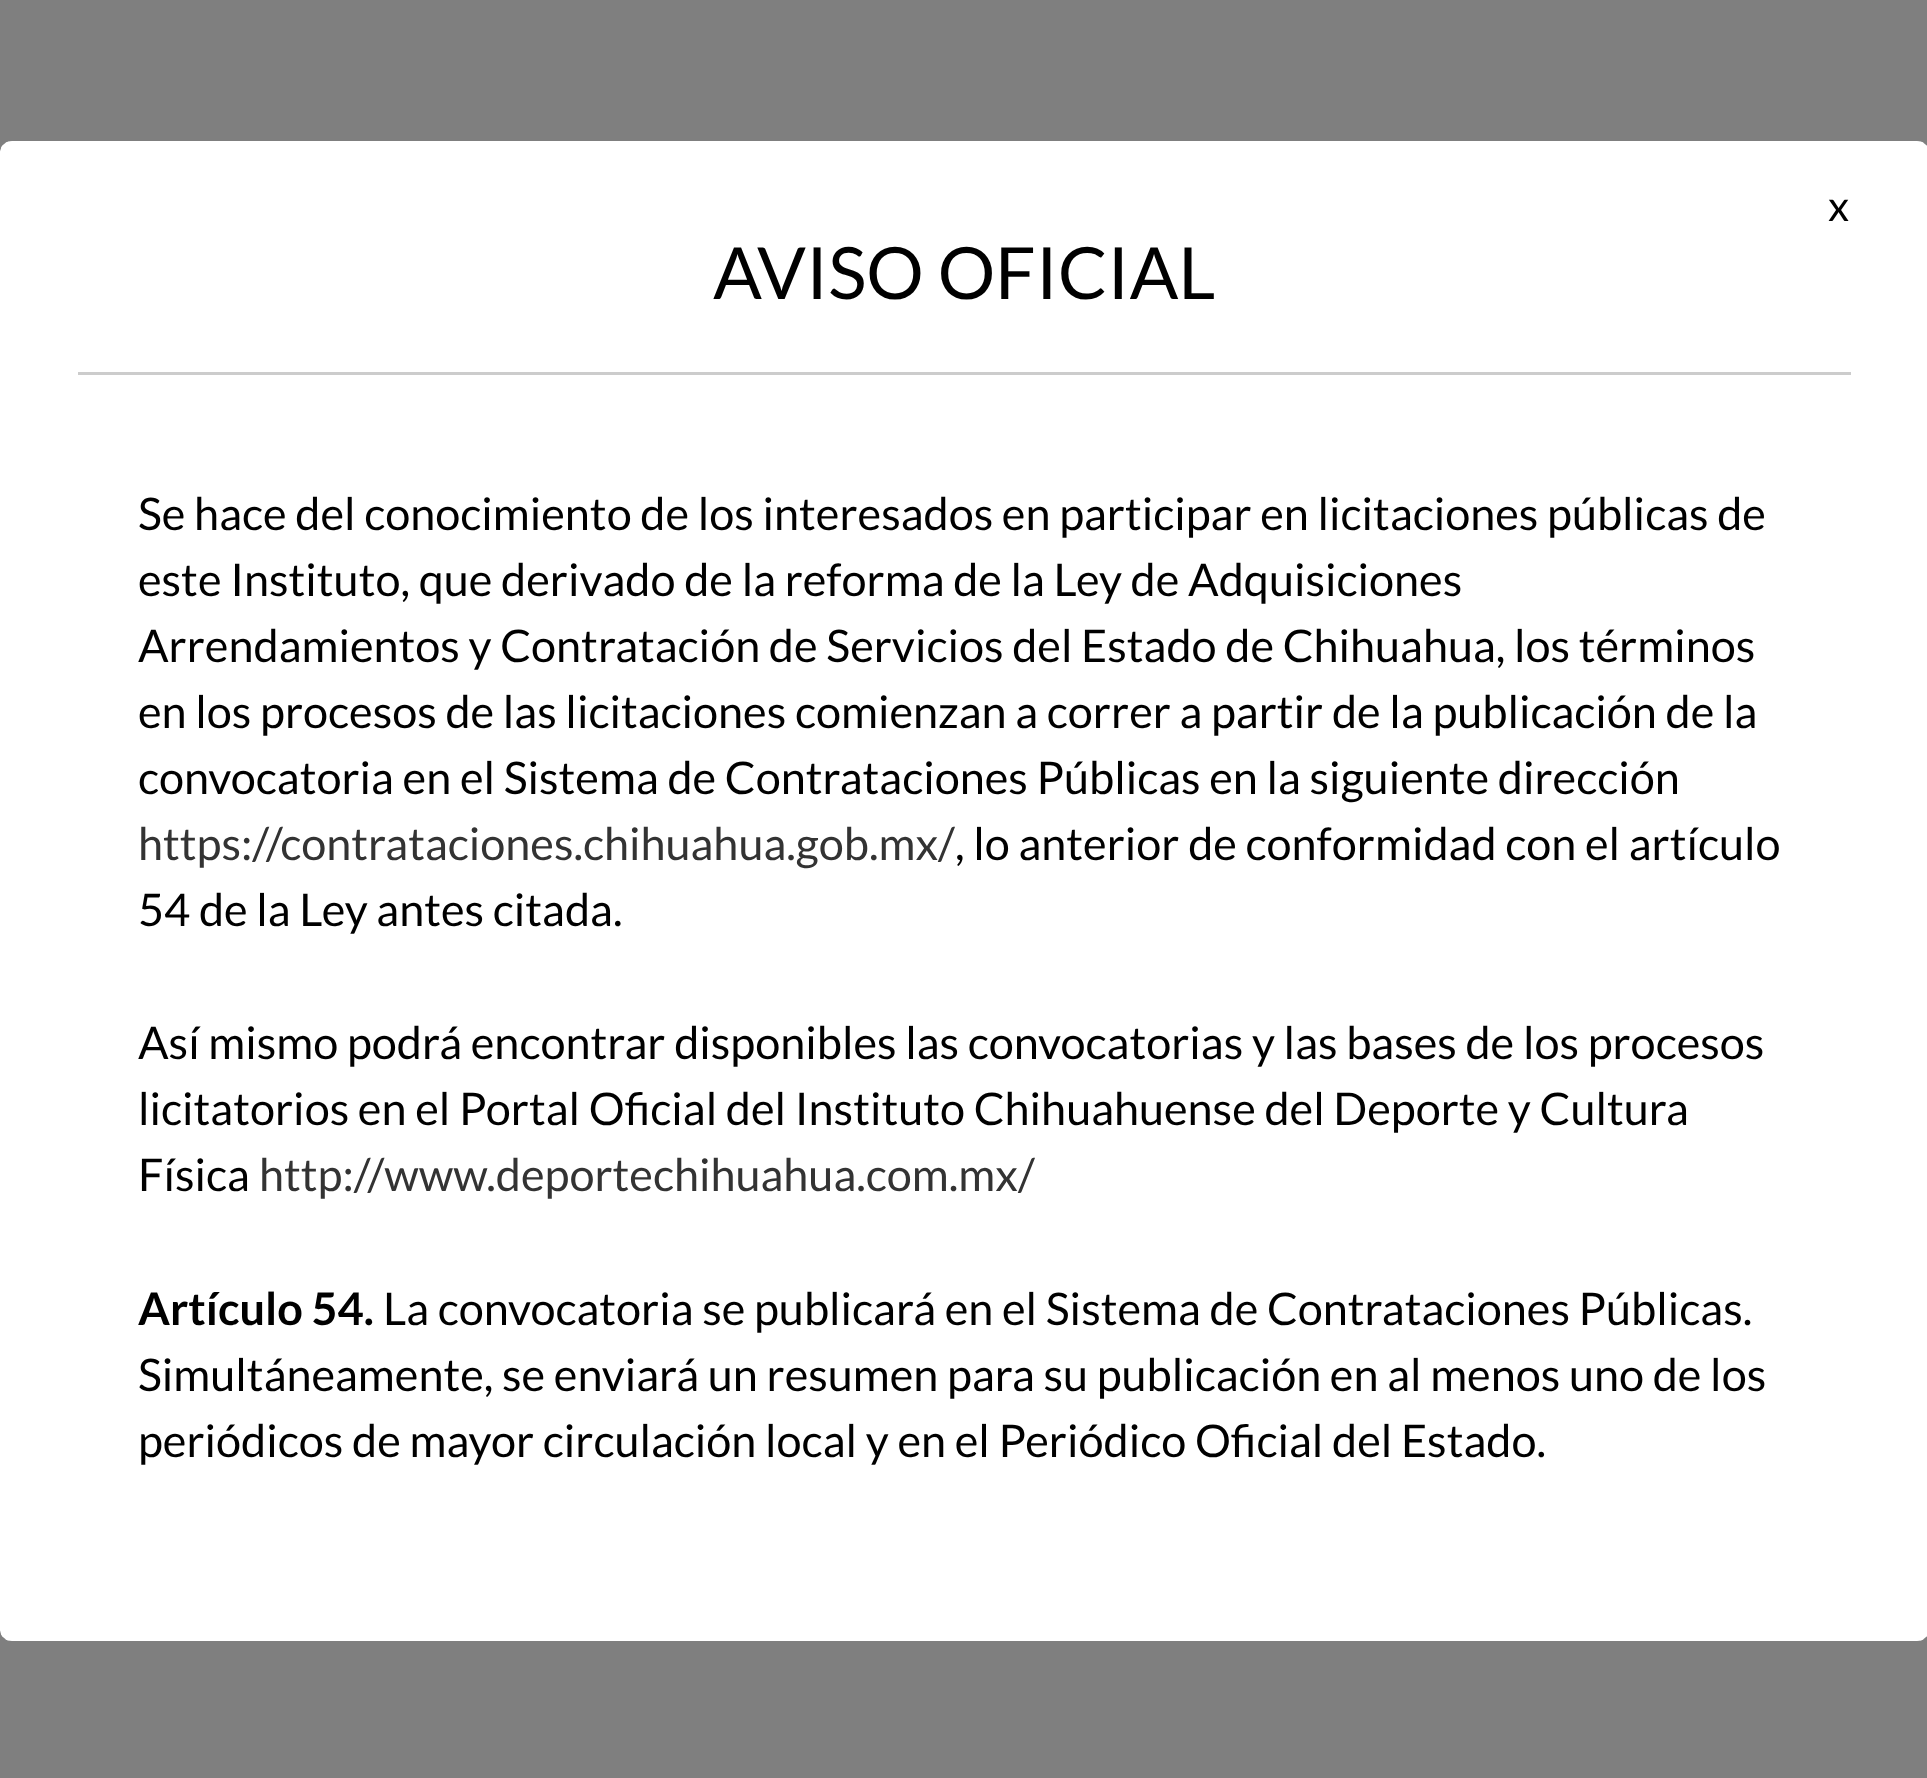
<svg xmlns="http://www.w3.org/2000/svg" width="1927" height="1778">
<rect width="100%" height="100%" fill="#7f7f7f"/>
<rect y="141" width="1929" height="1500" rx="12" fill="#fff"/>
<path d="M12 142.5h1905c6 0 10.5 4.5 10.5 10.5v1476c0 6-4.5 10.5-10.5 10.5h-1905c-6 0-10.5-4.5-10.5-10.5v-1476c0-6 4.5-10.5 10.5-10.5z" fill="none" stroke="#fff" stroke-width="3" stroke-dasharray="3 3"/>
<text x="1828" y="221" style="font-family:Lato;font-size:42px;fill:#000">x</text>
<text x="713" y="299" style="font-family:Lato;font-size:72px;fill:#000">AVISO OFICIAL</text>
<rect x="78" y="372" width="1773" height="3" fill="#ccc"/>
<text x="138" y="530" style="font-family:Lato;font-size:45px;fill:#000">Se hace del conocimiento de los interesados en participar en licitaciones públicas de</text>
<text x="138" y="596" style="font-family:Lato;font-size:45px;fill:#000">este Instituto, que derivado de la reforma de la Ley de Adquisiciones</text>
<text x="138" y="662" style="font-family:Lato;font-size:45px;fill:#000">Arrendamientos y Contratación de Servicios del Estado de Chihuahua, los términos</text>
<text x="138" y="728" style="font-family:Lato;font-size:45px;fill:#000">en los procesos de las licitaciones comienzan a correr a partir de la publicación de la</text>
<text x="138" y="794" style="font-family:Lato;font-size:45px;fill:#000">convocatoria en el Sistema de Contrataciones Públicas en la siguiente dirección</text>
<text x="138" y="860" style="font-family:Lato;font-size:45px;fill:#333">https://contrataciones.chihuahua.gob.mx/</text>
<text x="955" y="860" style="font-family:Lato;font-size:45px;fill:#000">, lo anterior de conformidad con el artículo</text>
<text x="138" y="926" style="font-family:Lato;font-size:45px;fill:#000">54 de la Ley antes citada.</text>
<text x="138" y="1059" style="font-family:Lato;font-size:45px;fill:#000">Así mismo podrá encontrar disponibles las convocatorias y las bases de los procesos</text>
<text x="138" y="1125" style="font-family:Lato;font-size:45px;fill:#000">licitatorios en el Portal Oficial del Instituto Chihuahuense del Deporte y Cultura</text>
<text x="138" y="1191" style="font-family:Lato;font-size:45px;fill:#000">Física</text>
<text x="259" y="1191" style="font-family:Lato;font-size:45px;fill:#333">http://www.deportechihuahua.com.mx/</text>
<text x="138" y="1325" style="font-family:Lato;font-size:45px;font-weight:bold;fill:#000">Artículo 54.</text>
<text x="383" y="1325" style="font-family:Lato;font-size:45px;fill:#000">La convocatoria se publicará en el Sistema de Contrataciones Públicas.</text>
<text x="138" y="1391" style="font-family:Lato;font-size:45px;fill:#000">Simultáneamente, se enviará un resumen para su publicación en al menos uno de los</text>
<text x="138" y="1457" style="font-family:Lato;font-size:45px;fill:#000">periódicos de mayor circulación local y en el Periódico Oficial del Estado.</text>
</svg>
